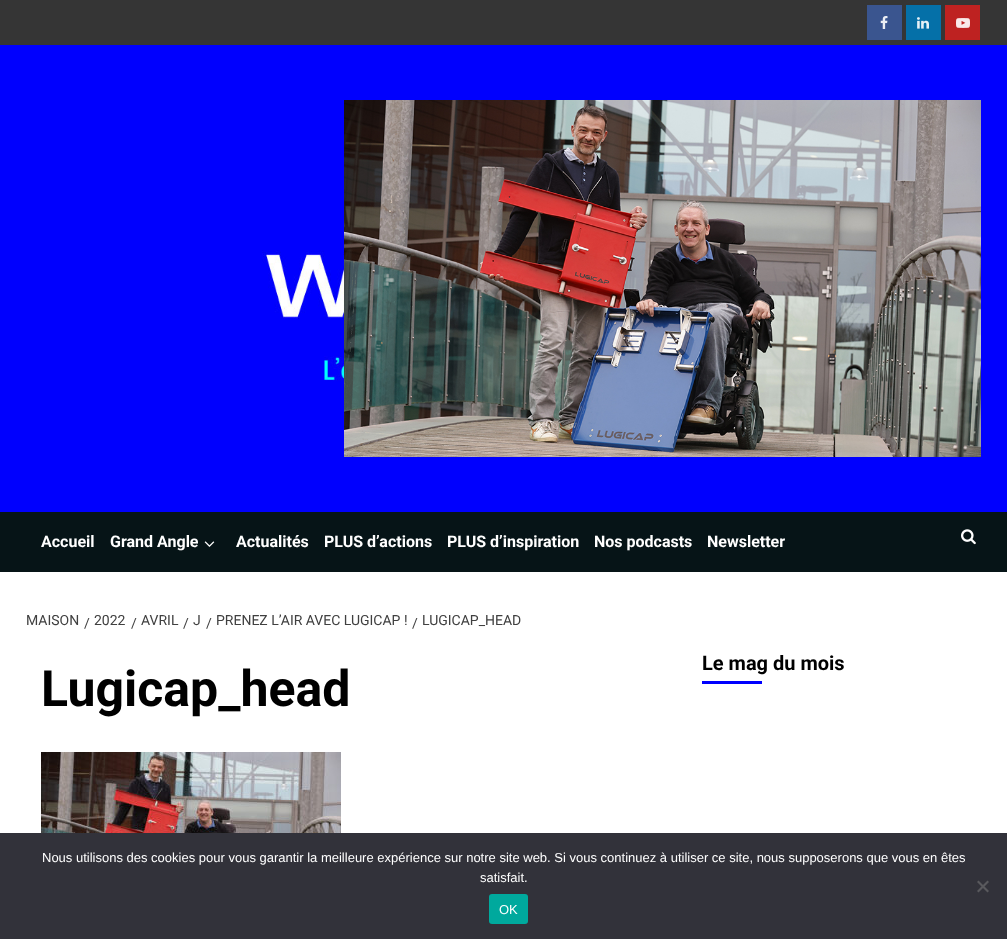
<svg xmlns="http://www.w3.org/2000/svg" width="1007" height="939">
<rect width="100%" height="100%" fill="#fff"/>
<rect width="1007" height="45" fill="#353535"/>
<rect x="867" y="5" width="35" height="35" fill="#3a558f"/>
<image x="880" y="16" width="8" height="13" href="media/1.png"/>
<rect x="906" y="5" width="35" height="35" fill="#0570a8"/>
<image x="917" y="17" width="12" height="12" href="media/2.png"/>
<rect x="945" y="5" width="35" height="35" fill="#be2221"/>
<image x="956" y="18" width="14" height="10" href="media/3.png"/>
<image x="0" y="45" width="1007" height="467" href="media/4.png"/>
<image x="344" y="100" width="637" height="357" href="media/5.png"/>
<rect y="512" width="1007" height="60" fill="#061417"/>
<text x="41" y="547" style="font-family:Roboto;font-size:16px;font-weight:bold;fill:#fff">Accueil</text>
<text x="110" y="547" style="font-family:Roboto;font-size:16px;font-weight:bold;fill:#fff">Grand Angle</text>
<image x="204" y="541" width="11" height="6" href="media/6.png"/>
<text x="236" y="547" style="font-family:Roboto;font-size:16px;font-weight:bold;fill:#fff">Actualités</text>
<text x="324" y="547" style="font-family:Roboto;font-size:16px;font-weight:bold;fill:#fff">PLUS d’actions</text>
<text x="447" y="547" style="font-family:Roboto;font-size:16px;font-weight:bold;fill:#fff">PLUS d’inspiration</text>
<text x="594" y="547" style="font-family:Roboto;font-size:16px;font-weight:bold;fill:#fff">Nos podcasts</text>
<text x="707" y="547" style="font-family:Roboto;font-size:16px;font-weight:bold;fill:#fff">Newsletter</text>
<image x="961" y="529" width="15" height="16" href="media/7.png"/>
<text x="26" y="625" style="font-family:Roboto;font-size:14px;fill:#404040">MAISON</text>
<text x="84" y="628" style="font-family:Roboto;font-size:14px;fill:#404040">/</text>
<text x="94" y="625" style="font-family:Roboto;font-size:14px;fill:#404040">2022</text>
<text x="131" y="628" style="font-family:Roboto;font-size:14px;fill:#404040">/</text>
<text x="141" y="625" style="font-family:Roboto;font-size:14px;fill:#404040">AVRIL</text>
<text x="183" y="628" style="font-family:Roboto;font-size:14px;fill:#404040">/</text>
<text x="193" y="625" style="font-family:Roboto;font-size:14px;fill:#404040">J</text>
<text x="206" y="628" style="font-family:Roboto;font-size:14px;fill:#404040">/</text>
<text x="216" y="625" style="font-family:Roboto;font-size:14px;fill:#404040">PRENEZ L’AIR AVEC LUGICAP !</text>
<text x="412" y="628" style="font-family:Roboto;font-size:14px;fill:#404040">/</text>
<text x="422" y="625" style="font-family:Roboto;font-size:14px;fill:#404040">LUGICAP_HEAD</text>
<text x="702" y="670" style="font-family:Roboto;font-size:20px;font-weight:bold;fill:#000">Le mag du mois</text>
<rect x="702" y="681" width="60" height="3" fill="#00f"/>
<text x="41" y="706" style="font-family:Roboto;font-size:50px;font-weight:bold;fill:#000">Lugicap_head</text>
<image x="41" y="752" width="300" height="81" href="media/8.png"/>
<rect y="833" width="1007" height="106" fill="#32323a"/>
<text x="42" y="862" style="font-family:Liberation Sans;font-size:13px;fill:#fff">Nous utilisons des cookies pour vous garantir la meilleure expérience sur notre site web. Si vous continuez à utiliser ce site, nous supposerons que vous en êtes</text>
<text x="480" y="882" style="font-family:Liberation Sans;font-size:13px;fill:#fff">satisfait.</text>
<path d="M987.5 880.5l1.5 1.5l-10.5 10.5l-1.5-1.5z" fill="#59595d"/>
<path d="M977 882l1.5-1.5l10.5 10.5l-1.5 1.5z" fill="#59595d"/>
<rect x="489" y="894" width="39" height="30" rx="3" fill="#00a99d"/>
<text x="499" y="914" style="font-family:Liberation Sans;font-size:13px;fill:#fff">OK</text>
</svg>
